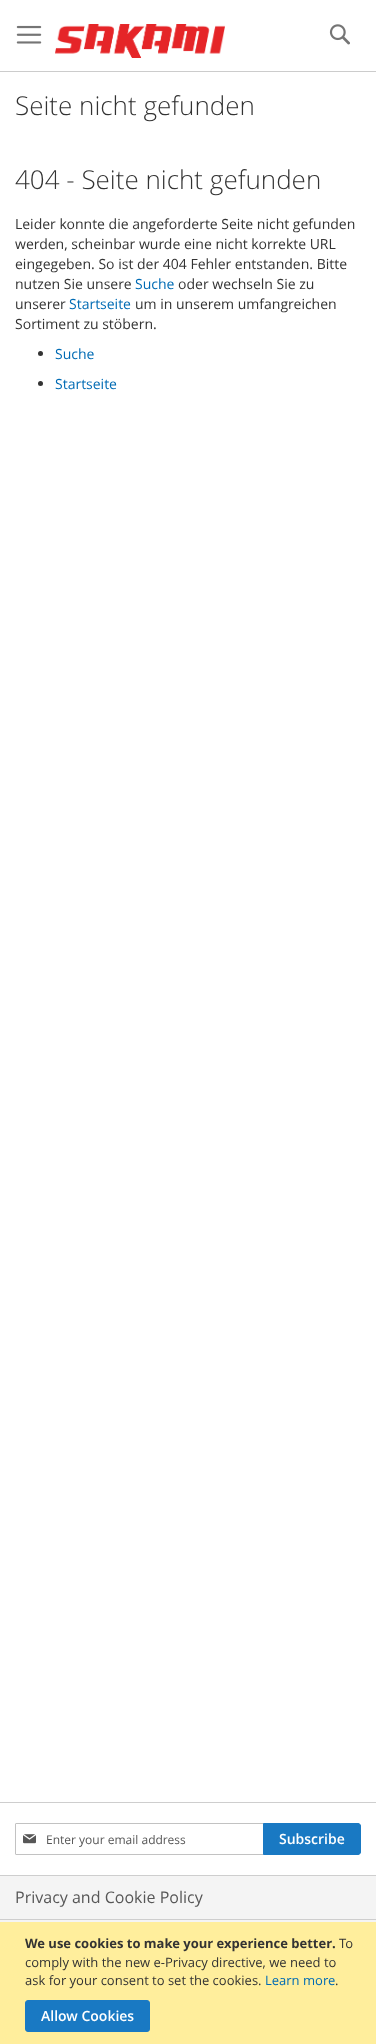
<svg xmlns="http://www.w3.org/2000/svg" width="376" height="2044">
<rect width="100%" height="100%" fill="#fff"/>
<rect y="71" width="376" height="1" fill="#ccc"/>
<image x="16" y="25" width="26" height="19" href="media/1.png"/>
<image x="55" y="24" width="170" height="34" href="media/2.png"/>
<image x="329" y="24" width="21" height="21" href="media/3.png"/>
<text x="15" y="115" style="font-family:Open Sans;font-size:26px;font-weight:300;fill:#333">Seite nicht gefunden</text>
<text x="15" y="189" style="font-family:Open Sans;font-size:26px;font-weight:300;fill:#333">404 - Seite nicht gefunden</text>
<text x="15" y="229" style="font-family:Open Sans;font-size:14px;fill:#333">Leider konnte die angeforderte Seite nicht gefunden</text>
<text x="15" y="249" style="font-family:Open Sans;font-size:14px;fill:#333">werden, scheinbar wurde eine nicht korrekte URL</text>
<text x="15" y="269" style="font-family:Open Sans;font-size:14px;fill:#333">eingegeben. So ist der 404 Fehler entstanden. Bitte</text>
<text x="15" y="289" style="font-family:Open Sans;font-size:14px;fill:#333">nutzen Sie unsere</text>
<text x="135" y="289" style="font-family:Open Sans;font-size:14px;fill:#006bb4">Suche</text>
<text x="178" y="289" style="font-family:Open Sans;font-size:14px;fill:#333">oder wechseln Sie zu</text>
<text x="15" y="309" style="font-family:Open Sans;font-size:14px;fill:#333">unserer</text>
<text x="69" y="309" style="font-family:Open Sans;font-size:14px;fill:#006bb4">Startseite</text>
<text x="135" y="309" style="font-family:Open Sans;font-size:14px;fill:#333">um in unserem umfangreichen</text>
<text x="15" y="329" style="font-family:Open Sans;font-size:14px;fill:#333">Sortiment zu stöbern.</text>
<circle cx="40.5" cy="353.5" r="2.5" fill="#333"/>
<text x="55" y="359" style="font-family:Open Sans;font-size:14px;fill:#006bb4">Suche</text>
<circle cx="40.5" cy="383.5" r="2.5" fill="#333"/>
<text x="55" y="389" style="font-family:Open Sans;font-size:14px;fill:#006bb4">Startseite</text>
<rect y="1802" width="376" height="1" fill="#cecece"/>
<rect x="15.5" y="1823.5" width="248" height="31" rx="0.5" fill="none" stroke="#c2c2c2"/>
<image x="23" y="1834" width="13" height="10" href="media/4.png"/>
<text x="46" y="1844" style="font-family:Open Sans;font-size:12px;fill:#575757">Enter your email address</text>
<path d="M263.5 1823.5h94.5c1.5 0 2.5 1 2.5 2.5v26c0 1.5-1 2.5-2.5 2.5h-94.5z" fill="#1979c3" stroke="#1979c3"/>
<text x="279" y="1844" style="font-family:Open Sans;font-size:14px;font-weight:600;fill:#fff">Subscribe</text>
<rect y="1876" width="376" height="43" fill="#f4f4f4"/>
<rect y="1875" width="376" height="1" fill="#cecece"/>
<text x="15" y="1903" style="font-family:Open Sans;font-size:16px;fill:#575757">Privacy and Cookie Policy</text>
<rect y="1920" width="376" height="2" fill="#f4f4f4"/>
<rect y="1919" width="376" height="1" fill="#cecece"/>
<rect y="1922" width="376" height="122" fill="#ffee9c"/>
<text x="25" y="1948" style="font-family:Open Sans;font-size:13px;font-weight:bold;fill:#333">We use cookies to make your experience better.</text>
<text x="339" y="1948" style="font-family:Open Sans;font-size:13px;fill:#333">To</text>
<text x="25" y="1967" style="font-family:Open Sans;font-size:13px;fill:#333">comply with the new e-Privacy directive, we need to</text>
<text x="25" y="1985" style="font-family:Open Sans;font-size:13px;fill:#333">ask for your consent to set the cookies.</text>
<text x="265" y="1985" style="font-family:Open Sans;font-size:13px;fill:#006bb4">Learn more</text>
<text x="335" y="1985" style="font-family:Open Sans;font-size:13px;fill:#333">.</text>
<rect x="25.5" y="2000.5" width="124" height="31" rx="2.5" fill="#1979c3" stroke="#1979c3"/>
<text x="41" y="2021" style="font-family:Open Sans;font-size:14px;font-weight:600;fill:#fff">Allow Cookies</text>
</svg>
